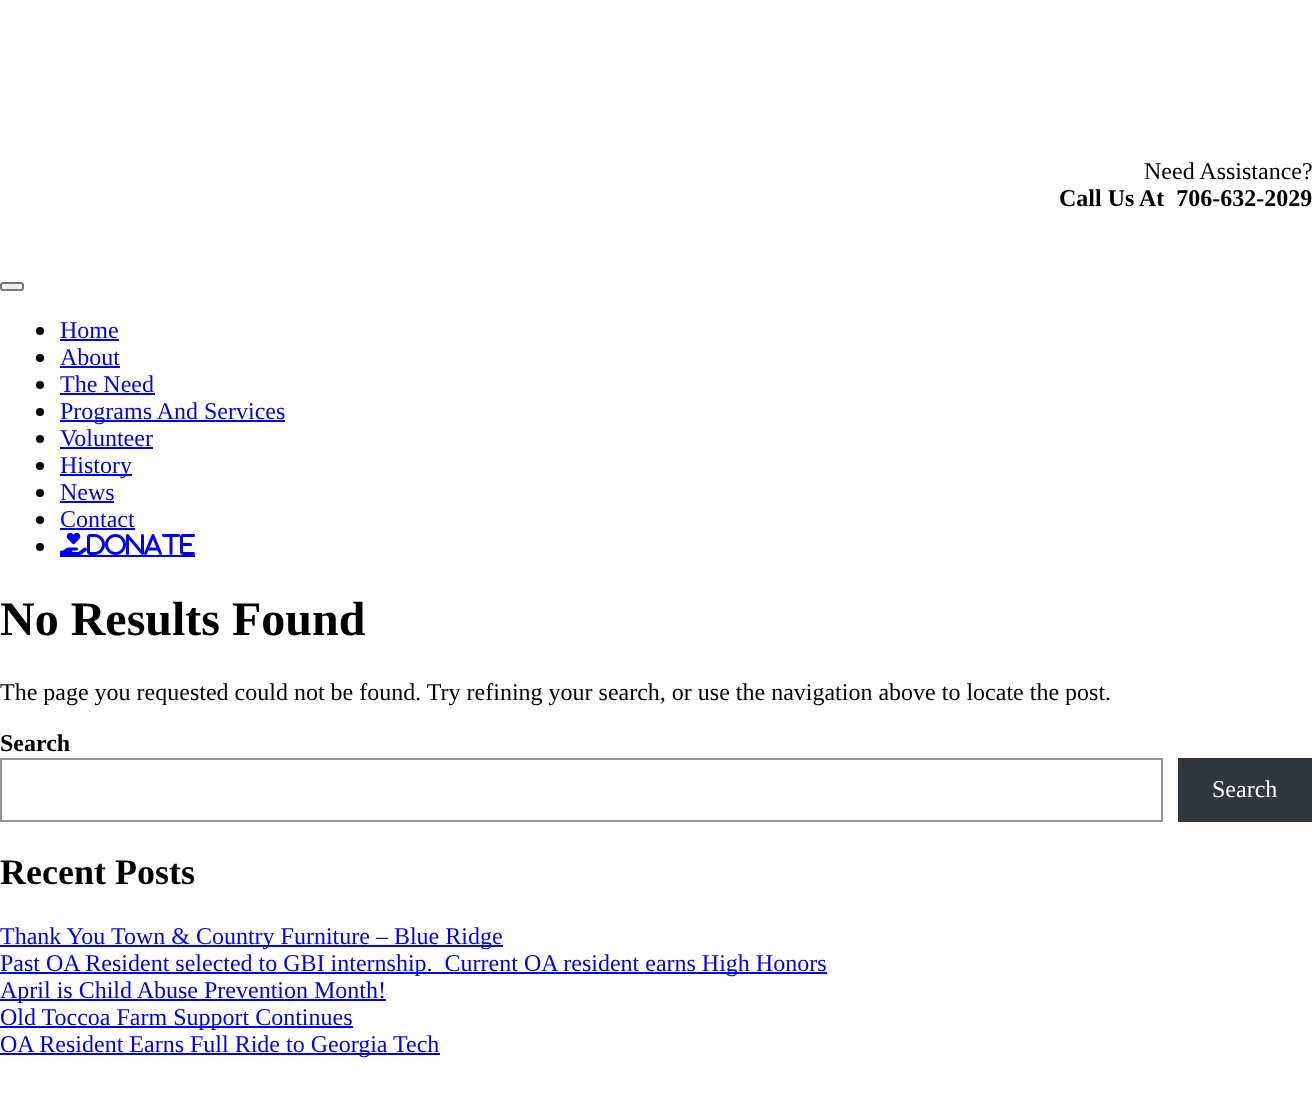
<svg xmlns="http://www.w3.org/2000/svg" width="1312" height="1104">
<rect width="100%" height="100%" fill="#fff"/>
<text x="1144" y="179" style="font-family:Liberation Serif;font-size:24px;fill:#000">Need Assistance?</text>
<text x="1059" y="206" style="font-family:Liberation Serif;font-size:24px;font-weight:bold;fill:#000" xml:space="preserve">Call Us At  706-632-2029</text>
<rect x="1" y="283" width="22" height="7" rx="2" fill="#efefef" stroke="#767676" stroke-width="2"/>
<circle cx="40" cy="331" r="4" fill="#000"/>
<text x="60" y="338" style="font-family:Liberation Serif;font-size:24px;fill:#00e">Home</text>
<rect x="60" y="339" width="59" height="2" fill="#00e"/>
<circle cx="40" cy="358" r="4" fill="#000"/>
<text x="60" y="365" style="font-family:Liberation Serif;font-size:24px;fill:#00e">About</text>
<rect x="60" y="366" width="60" height="2" fill="#00e"/>
<circle cx="40" cy="385" r="4" fill="#000"/>
<text x="60" y="392" style="font-family:Liberation Serif;font-size:24px;fill:#00e">The Need</text>
<rect x="60" y="393" width="95" height="2" fill="#00e"/>
<circle cx="40" cy="412" r="4" fill="#000"/>
<rect x="60" y="420" width="225" height="2" fill="#00e"/>
<text x="60" y="419" style="font-family:Liberation Serif;font-size:24px;fill:#00e">Programs And Services</text>
<circle cx="40" cy="439" r="4" fill="#000"/>
<text x="60" y="446" style="font-family:Liberation Serif;font-size:24px;fill:#00e">Volunteer</text>
<rect x="60" y="447" width="93" height="2" fill="#00e"/>
<circle cx="40" cy="466" r="4" fill="#000"/>
<rect x="60" y="474" width="72" height="2" fill="#00e"/>
<text x="60" y="473" style="font-family:Liberation Serif;font-size:24px;fill:#00e">History</text>
<circle cx="40" cy="493" r="4" fill="#000"/>
<text x="60" y="500" style="font-family:Liberation Serif;font-size:24px;fill:#00e">News</text>
<rect x="60" y="501" width="54" height="2" fill="#00e"/>
<circle cx="40" cy="520" r="4" fill="#000"/>
<text x="60" y="527" style="font-family:Liberation Serif;font-size:24px;fill:#00e">Contact</text>
<rect x="60" y="528" width="75" height="2" fill="#00e"/>
<circle cx="40" cy="547" r="4" fill="#000"/>
<image x="60" y="532" width="27" height="23" href="media/1.png"/>
<image x="87" y="534" width="108" height="21" href="media/2.png"/>
<rect x="60" y="555" width="135" height="2" fill="#00e"/>
<text x="0" y="635" style="font-family:Liberation Serif;font-size:48px;font-weight:bold;fill:#000">No Results Found</text>
<text x="0" y="700" style="font-family:Liberation Serif;font-size:24px;fill:#000">The page you requested could not be found. Try refining your search, or use the navigation above to locate the post.</text>
<text x="0" y="751" style="font-family:Liberation Serif;font-size:24px;font-weight:bold;fill:#000">Search</text>
<rect x="1" y="759" width="1161" height="62" fill="none" stroke="#949494" stroke-width="2"/>
<rect x="1178" y="758" width="134" height="64" fill="#32373c"/>
<text x="1212" y="797" style="font-family:Liberation Serif;font-size:24px;fill:#fff">Search</text>
<text x="0" y="884" style="font-family:Liberation Serif;font-size:36px;font-weight:bold;fill:#000">Recent Posts</text>
<rect y="945" width="503" height="2" fill="#00e"/>
<text x="0" y="944" style="font-family:Liberation Serif;font-size:24px;fill:#00e">Thank You Town &amp; Country Furniture – Blue Ridge</text>
<rect y="972" width="827" height="2" fill="#00e"/>
<text x="0" y="971" style="font-family:Liberation Serif;font-size:24px;fill:#00e" xml:space="preserve">Past OA Resident selected to GBI internship.  Current OA resident earns High Honors</text>
<rect y="999" width="386" height="2" fill="#00e"/>
<text x="0" y="998" style="font-family:Liberation Serif;font-size:24px;fill:#00e">April is Child Abuse Prevention Month!</text>
<rect y="1026" width="353" height="2" fill="#00e"/>
<text x="0" y="1025" style="font-family:Liberation Serif;font-size:24px;fill:#00e">Old Toccoa Farm Support Continues</text>
<rect y="1053" width="440" height="2" fill="#00e"/>
<text x="0" y="1052" style="font-family:Liberation Serif;font-size:24px;fill:#00e">OA Resident Earns Full Ride to Georgia Tech</text>
</svg>
